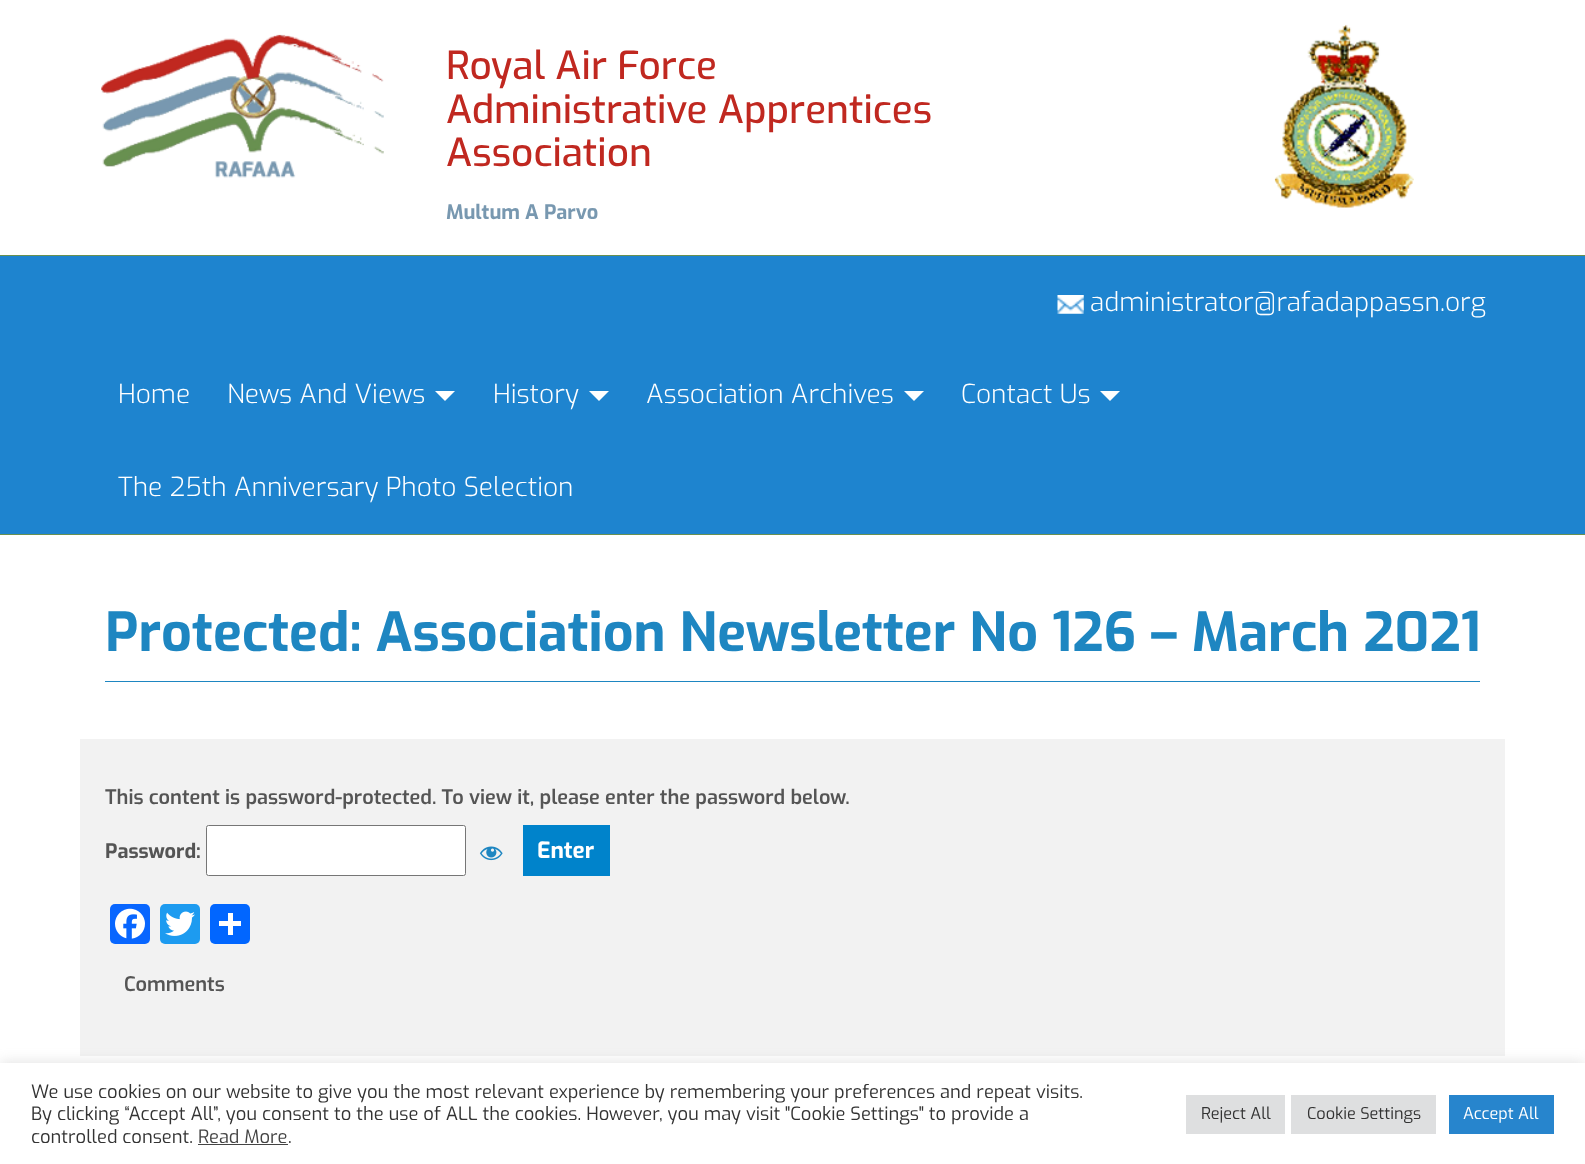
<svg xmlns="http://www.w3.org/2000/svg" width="1585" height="1164">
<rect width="100%" height="100%" fill="#fff"/>
<image x="101" y="34" width="283" height="144" href="media/1.png"/>
<text x="446" y="79" style="font-family:Exo;font-size:38.75px;font-weight:500;fill:#c02820">Royal Air Force</text>
<text x="446" y="123" style="font-family:Exo;font-size:38.75px;font-weight:500;fill:#c02820">Administrative Apprentices</text>
<text x="446" y="166" style="font-family:Exo;font-size:38.75px;font-weight:500;fill:#c02820">Association</text>
<text x="446" y="219" style="font-family:Exo;font-size:20px;font-weight:bold;fill:#7898b0">Multum A Parvo</text>
<image x="1274" y="24" width="140" height="184" href="media/2.png"/>
<rect y="256" width="1585" height="278" fill="#1e84cf"/>
<rect y="255" width="1585" height="1" fill="#689050"/>
<rect y="534" width="1585" height="1" fill="#689050"/>
<image x="1057" y="295" width="27" height="19" href="media/3.png"/>
<text x="1090" y="311" style="font-family:Exo;font-size:26.25px;font-weight:300;fill:#fff">administrator@rafadappassn.org</text>
<text x="118" y="403" style="font-family:Exo;font-size:26.25px;font-weight:300;fill:#fff">Home</text>
<text x="227" y="403" style="font-family:Exo;font-size:26.25px;font-weight:300;fill:#fff">News And Views</text>
<path d="M435 391h20l-10 10z" fill="#fff"/>
<text x="493" y="403" style="font-family:Exo;font-size:26.25px;font-weight:300;fill:#fff">History</text>
<path d="M589 391h20l-10 10z" fill="#fff"/>
<text x="646" y="403" style="font-family:Exo;font-size:26.25px;font-weight:300;fill:#fff">Association Archives</text>
<path d="M904 391h20l-10 10z" fill="#fff"/>
<text x="961" y="403" style="font-family:Exo;font-size:26.25px;font-weight:300;fill:#fff">Contact Us</text>
<path d="M1100 391h20l-10 10z" fill="#fff"/>
<text x="118" y="496" style="font-family:Exo;font-size:26.25px;font-weight:300;fill:#fff">The 25th Anniversary Photo Selection</text>
<rect x="105" y="681" width="1375" height="1" fill="#1e86c1"/>
<text x="105" y="651" style="font-family:Exo;font-size:53.75px;font-weight:bold;fill:#1e86c1">Protected: Association Newsletter No 126 – March 2021</text>
<rect x="80" y="739" width="1425" height="317" fill="#f2f2f2"/>
<text x="105" y="804" style="font-family:Exo;font-size:20px;font-weight:600;fill:#555">This content is password-protected. To view it, please enter the password below.</text>
<text x="105" y="858" style="font-family:Exo;font-size:20px;font-weight:bold;fill:#555">Password:</text>
<rect x="206.5" y="825.5" width="259" height="50" rx="2" fill="#fff" stroke="#767676"/>
<image x="479" y="846" width="24" height="15" href="media/4.png"/>
<rect x="523" y="825" width="87" height="51" fill="#0083cb"/>
<text x="537" y="858" style="font-family:Exo;font-size:22.5px;font-weight:bold;fill:#fff">Enter</text>
<rect x="110" y="904" width="40" height="40" rx="5" fill="#0866ff"/>
<image x="115" y="908" width="30" height="31" href="media/5.png"/>
<rect x="160" y="904" width="40" height="40" rx="5" fill="#1d9bf0"/>
<image x="165" y="911" width="30" height="25" href="media/6.png"/>
<rect x="210" y="904" width="40" height="40" rx="5" fill="#0166ff"/>
<rect x="228" y="913" width="5" height="22" fill="#fff"/>
<rect x="219" y="921" width="22" height="5" fill="#fff"/>
<text x="124" y="991" style="font-family:Exo;font-size:20px;font-weight:600;fill:#555">Comments</text>
<rect y="1061" width="1585" height="103" fill="#acabab4d" filter="blur(6px)"/>
<rect y="1063" width="1585" height="101" fill="#fff"/>
<text x="31" y="1098" style="font-family:Exo;font-size:18.33px;fill:#333">We use cookies on our website to give you the most relevant experience by remembering your preferences and repeat visits.</text>
<text x="31" y="1120" style="font-family:Exo;font-size:18.33px;fill:#333">By clicking “Accept All”, you consent to the use of ALL the cookies. However, you may visit "Cookie Settings" to provide a</text>
<text x="31" y="1143" style="font-family:Exo;font-size:18.33px;fill:#333">controlled consent.</text>
<text x="198" y="1143" style="font-family:Exo;font-size:18.33px;fill:#444">Read More</text>
<rect x="198" y="1144" width="90" height="1" fill="#444"/>
<text x="288" y="1143" style="font-family:Exo;font-size:18.33px;fill:#333">.</text>
<rect x="1186" y="1095" width="99" height="39" fill="#dedfe0"/>
<text x="1201" y="1119" style="font-family:Exo;font-size:16.25px;fill:#333">Reject All</text>
<rect x="1291" y="1095" width="145" height="39" fill="#dedfe0"/>
<text x="1307" y="1119" style="font-family:Exo;font-size:16.25px;fill:#333">Cookie Settings</text>
<rect x="1449" y="1095" width="105" height="39" fill="#2785cd"/>
<text x="1463" y="1119" style="font-family:Exo;font-size:16.25px;fill:#fff">Accept All</text>
</svg>
